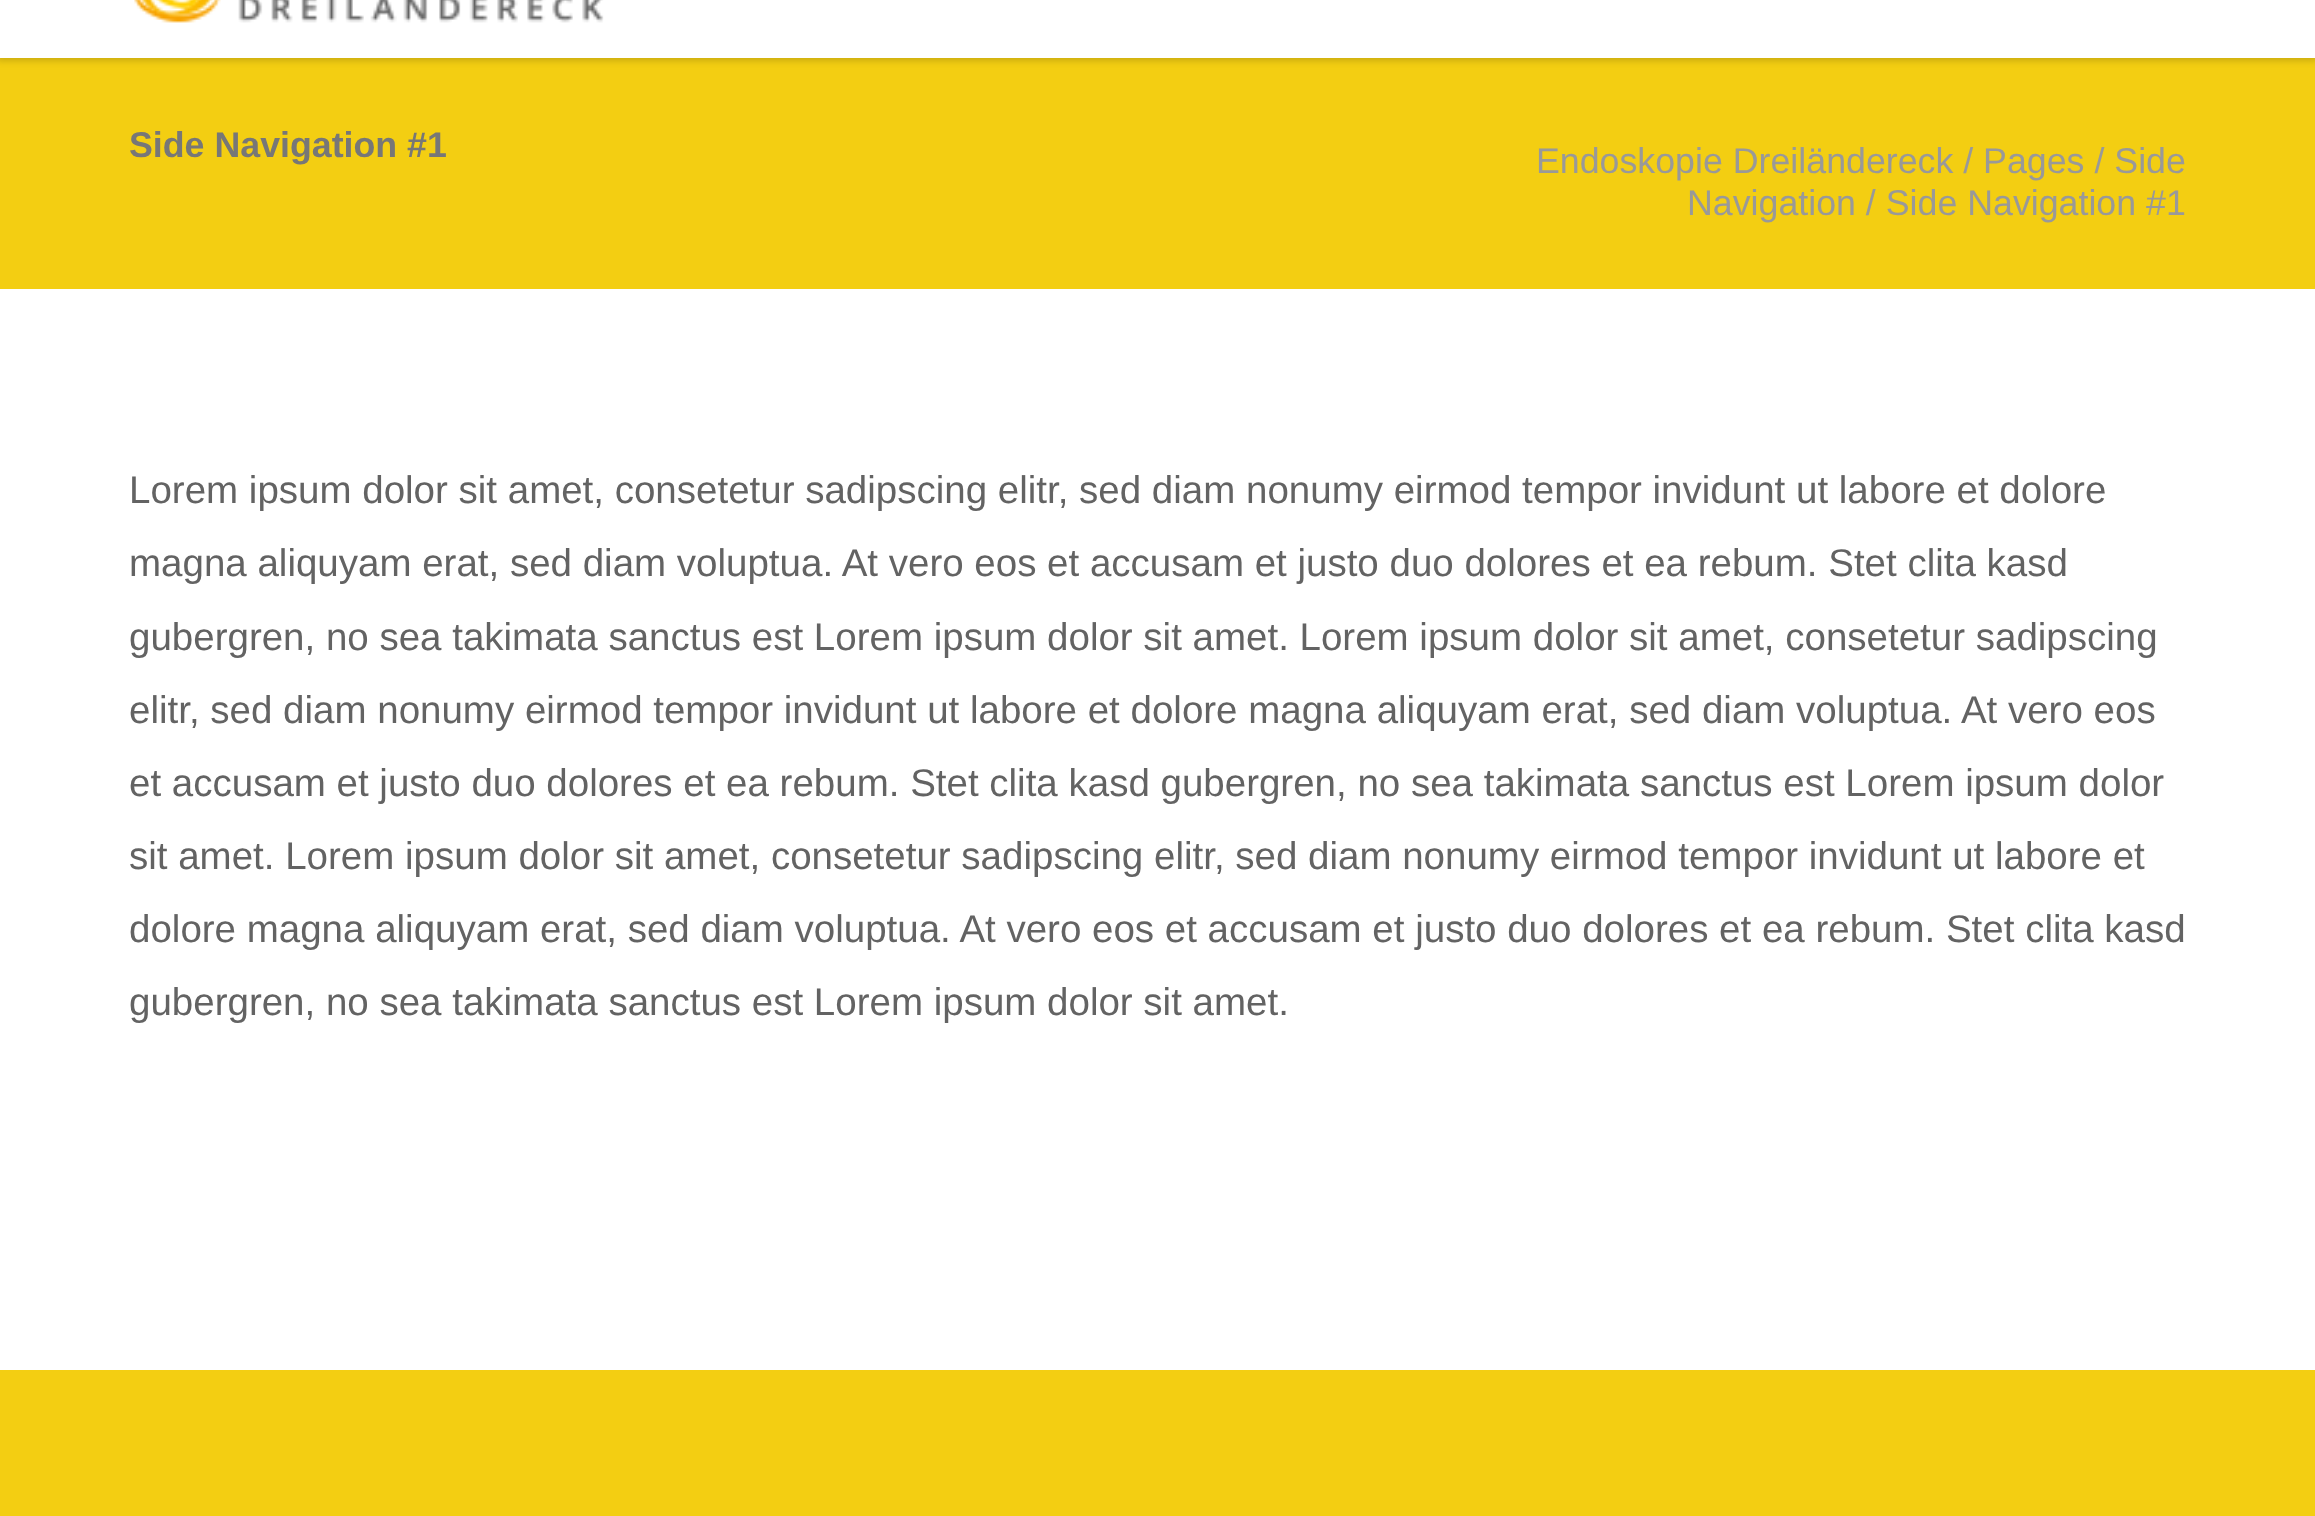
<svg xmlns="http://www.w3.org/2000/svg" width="2315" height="1516">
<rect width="100%" height="100%" fill="#fff"/>
<rect y="58" width="2315" height="231" fill="#f3ce12"/>
<rect x="-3" y="-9" width="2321" height="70" fill="#00000029" filter="blur(3px)"/>
<rect width="2315" height="58" fill="#fff"/>
<image x="134" y="0" width="470" height="23" href="media/1.png"/>
<text x="129" y="157" style="font-family:Liberation Sans;font-size:35.75px;font-weight:bold;fill:#777">Side Navigation #1</text>
<text x="1536" y="173" style="font-family:Liberation Sans;font-size:35.75px;fill:#999">Endoskopie Dreiländereck / Pages / Side</text>
<text x="1687" y="215" style="font-family:Liberation Sans;font-size:35.75px;fill:#999">Navigation / Side Navigation #1</text>
<text x="129" y="503" style="font-family:Liberation Sans;font-size:38.5px;fill:#636363">Lorem ipsum dolor sit amet, consetetur sadipscing elitr, sed diam nonumy eirmod tempor invidunt ut labore et dolore</text>
<text x="129" y="576" style="font-family:Liberation Sans;font-size:38.5px;fill:#636363">magna aliquyam erat, sed diam voluptua. At vero eos et accusam et justo duo dolores et ea rebum. Stet clita kasd</text>
<text x="129" y="650" style="font-family:Liberation Sans;font-size:38.5px;fill:#636363">gubergren, no sea takimata sanctus est Lorem ipsum dolor sit amet. Lorem ipsum dolor sit amet, consetetur sadipscing</text>
<text x="129" y="723" style="font-family:Liberation Sans;font-size:38.5px;fill:#636363">elitr, sed diam nonumy eirmod tempor invidunt ut labore et dolore magna aliquyam erat, sed diam voluptua. At vero eos</text>
<text x="129" y="796" style="font-family:Liberation Sans;font-size:38.5px;fill:#636363">et accusam et justo duo dolores et ea rebum. Stet clita kasd gubergren, no sea takimata sanctus est Lorem ipsum dolor</text>
<text x="129" y="869" style="font-family:Liberation Sans;font-size:38.5px;fill:#636363">sit amet. Lorem ipsum dolor sit amet, consetetur sadipscing elitr, sed diam nonumy eirmod tempor invidunt ut labore et</text>
<text x="129" y="942" style="font-family:Liberation Sans;font-size:38.5px;fill:#636363">dolore magna aliquyam erat, sed diam voluptua. At vero eos et accusam et justo duo dolores et ea rebum. Stet clita kasd</text>
<text x="129" y="1015" style="font-family:Liberation Sans;font-size:38.5px;fill:#636363">gubergren, no sea takimata sanctus est Lorem ipsum dolor sit amet.</text>
<rect y="1370" width="2315" height="146" fill="#f3ce12"/>
</svg>
